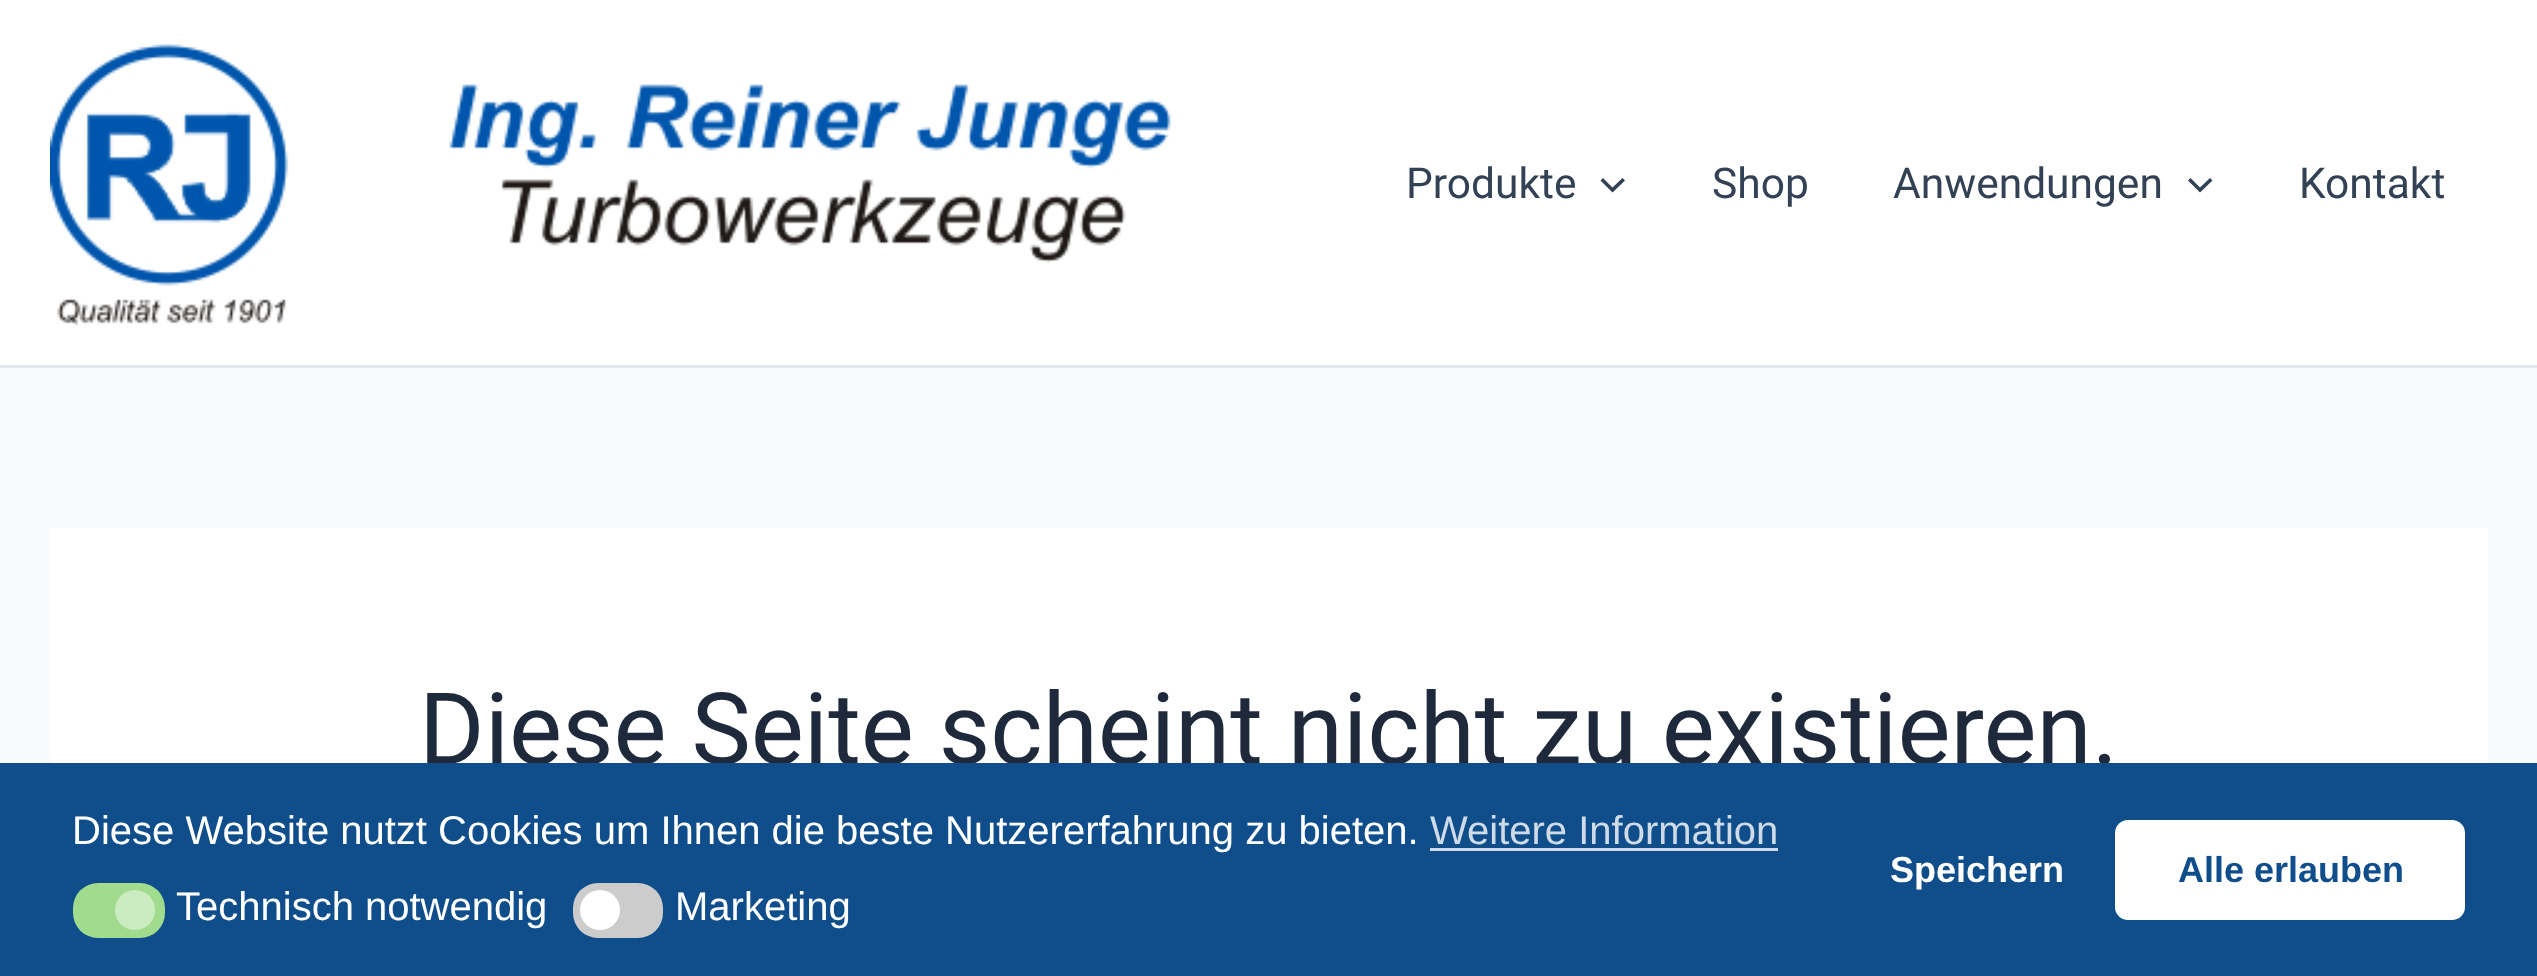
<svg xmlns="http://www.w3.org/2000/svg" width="2537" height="976">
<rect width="100%" height="100%" fill="#f9fafb"/>
<rect width="2537" height="365" fill="#fff"/>
<rect y="365" width="2537" height="3" fill="#e2e8f0"/>
<image x="50" y="44" width="1121" height="281" href="media/1.png"/>
<text x="1406" y="198" style="font-family:Roboto;font-size:42.5px;fill:#334155">Produkte</text>
<path d="M1600.5 180.5l12 12l12.5-12l-2.5-2.5l-10 9.5l-9.5-9.5z" fill="#334155"/>
<text x="1712" y="198" style="font-family:Roboto;font-size:42.5px;fill:#334155">Shop</text>
<text x="1893" y="198" style="font-family:Roboto;font-size:42.5px;fill:#334155">Anwendungen</text>
<path d="M2188 180.5l12 12l12.5-12l-2.5-2.5l-10 9.5l-9.5-9.5z" fill="#334155"/>
<text x="2299" y="198" style="font-family:Roboto;font-size:42.5px;fill:#334155">Kontakt</text>
<rect x="50" y="528" width="2438" height="235" fill="#fff"/>
<text x="419" y="764" style="font-family:Roboto;font-size:100px;fill:#1e293b">Diese Seite scheint nicht zu existieren.</text>
<rect y="763" width="2537" height="213" fill="#104e8b"/>
<text x="72" y="844" style="font-family:Liberation Sans;font-size:40px;fill:#fff">Diese Website nutzt Cookies um Ihnen die beste Nutzererfahrung zu bieten.</text>
<text x="1430" y="844" style="font-family:Liberation Sans;font-size:40px;fill:#cfdce8">Weitere Information</text>
<rect x="1430" y="848" width="348" height="3" fill="#cfdce8"/>
<rect x="73" y="883" width="92" height="55" rx="25" fill="#a0db8e"/>
<circle cx="135" cy="910" r="20" fill="#cbebc1"/>
<text x="176" y="920" style="font-family:Liberation Sans;font-size:40px;fill:#fff">Technisch notwendig</text>
<rect x="573" y="883" width="90" height="55" rx="25" fill="#ccc"/>
<circle cx="600" cy="910" r="20" fill="#fff"/>
<text x="675" y="920" style="font-family:Liberation Sans;font-size:40px;fill:#fff">Marketing</text>
<text x="1890" y="882" style="font-family:Liberation Sans;font-size:36px;font-weight:bold;fill:#fff">Speichern</text>
<rect x="2115" y="820" width="350" height="100" rx="13" fill="#fff"/>
<text x="2178" y="882" style="font-family:Liberation Sans;font-size:36px;font-weight:bold;fill:#104e8b">Alle erlauben</text>
</svg>
